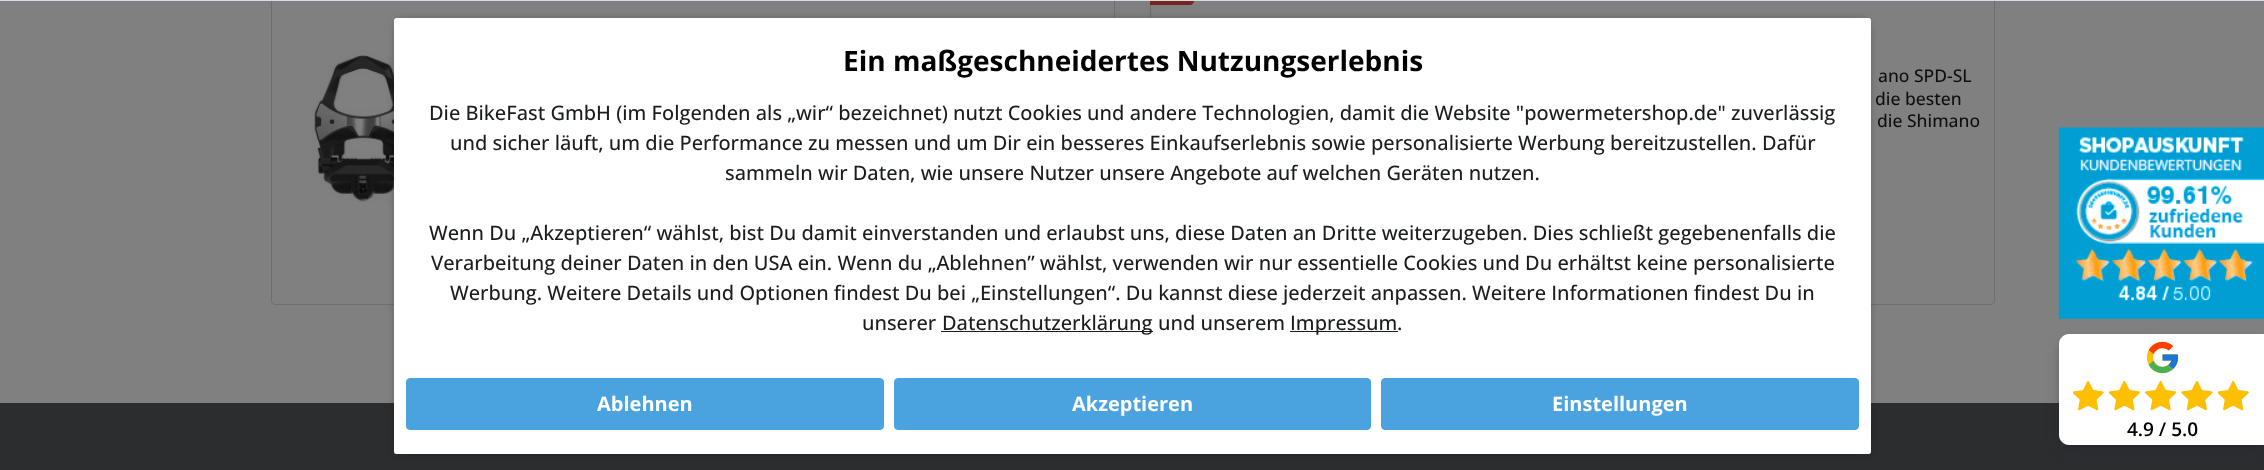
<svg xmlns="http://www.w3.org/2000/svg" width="2264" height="470">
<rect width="100%" height="100%" fill="#808080"/>
<rect x="271.5" y="-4.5" width="843" height="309" rx="3.5" fill="none" stroke="#6d6d73"/>
<rect x="1150.5" y="-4.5" width="844" height="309" rx="3.5" fill="none" stroke="#6d6d73"/>
<path d="M1150-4h40c2 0 4 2 4 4v1c0 2-2 4-4 4h-40z" fill="#74261e"/>
<rect width="2264" height="1" fill="#dadae5"/>
<image x="312" y="51" width="82" height="151" href="media/1.png"/>
<rect y="403" width="2264" height="67" fill="#2c2d2e"/>
<rect x="399" y="23" width="1467" height="426" fill="#00000099" filter="blur(6px)"/>
<rect x="394" y="18" width="1477" height="436" rx="2.5" fill="#fff"/>
<text x="843" y="71" style="font-family:Open Sans;font-size:28px;font-weight:bold;fill:#000">Ein maßgeschneidertes Nutzungserlebnis</text>
<text x="429" y="120" style="font-family:Open Sans;font-size:20px;font-weight:500;fill:#1a1c1d">Die BikeFast GmbH (im Folgenden als „wir“ bezeichnet) nutzt Cookies und andere Technologien, damit die Website "powermetershop.de" zuverlässig</text>
<text x="450" y="150" style="font-family:Open Sans;font-size:20px;font-weight:500;fill:#1a1c1d">und sicher läuft, um die Performance zu messen und um Dir ein besseres Einkaufserlebnis sowie personalisierte Werbung bereitzustellen. Dafür</text>
<text x="725" y="180" style="font-family:Open Sans;font-size:20px;font-weight:500;fill:#1a1c1d">sammeln wir Daten, wie unsere Nutzer unsere Angebote auf welchen Geräten nutzen.</text>
<text x="429" y="240" style="font-family:Open Sans;font-size:20px;font-weight:500;fill:#1a1c1d">Wenn Du „Akzeptieren“ wählst, bist Du damit einverstanden und erlaubst uns, diese Daten an Dritte weiterzugeben. Dies schließt gegebenenfalls die</text>
<text x="431" y="270" style="font-family:Open Sans;font-size:20px;font-weight:500;fill:#1a1c1d">Verarbeitung deiner Daten in den USA ein. Wenn du „Ablehnen” wählst, verwenden wir nur essentielle Cookies und Du erhältst keine personalisierte</text>
<text x="450" y="300" style="font-family:Open Sans;font-size:20px;font-weight:500;fill:#1a1c1d">Werbung. Weitere Details und Optionen findest Du bei „Einstellungen“. Du kannst diese jederzeit anpassen. Weitere Informationen findest Du in</text>
<text x="862" y="330" style="font-family:Open Sans;font-size:20px;font-weight:500;fill:#1a1c1d">unserer</text>
<rect x="941" y="331" width="212" height="1" fill="#1a1c1e"/>
<text x="942" y="330" style="font-family:Open Sans;font-size:20px;font-weight:500;fill:#1a1c1d">Datenschutzerklärung</text>
<text x="1158" y="330" style="font-family:Open Sans;font-size:20px;font-weight:500;fill:#1a1c1d">und unserem</text>
<rect x="1290" y="331" width="108" height="1" fill="#1a1c1e"/>
<text x="1290" y="330" style="font-family:Open Sans;font-size:20px;font-weight:500;fill:#1a1c1d">Impressum</text>
<text x="1397" y="330" style="font-family:Open Sans;font-size:20px;font-weight:500;fill:#1a1c1d">.</text>
<rect x="406.5" y="378.5" width="477" height="51" rx="3.5" fill="#4aa3df" stroke="#4aa3df"/>
<text x="597" y="411" style="font-family:Open Sans;font-size:20px;font-weight:bold;fill:#fff">Ablehnen</text>
<rect x="894.5" y="378.5" width="476" height="51" rx="3.5" fill="#4aa3df" stroke="#4aa3df"/>
<text x="1072" y="411" style="font-family:Open Sans;font-size:20px;font-weight:bold;fill:#fff">Akzeptieren</text>
<rect x="1381.5" y="378.5" width="477" height="51" rx="3.5" fill="#4aa3df" stroke="#4aa3df"/>
<text x="1552" y="411" style="font-family:Open Sans;font-size:20px;font-weight:bold;fill:#fff">Einstellungen</text>
<text x="1878" y="82" style="font-family:Open Sans;font-size:17.5px;font-weight:500;fill:#0d0e0f">ano SPD-SL</text>
<text x="1875" y="105" style="font-family:Open Sans;font-size:17.5px;font-weight:500;fill:#0d0e0f">die besten</text>
<text x="1877" y="127" style="font-family:Open Sans;font-size:17.5px;font-weight:500;fill:#0d0e0f">die Shimano</text>
<image x="2058" y="127" width="206" height="192" href="media/2.png"/>
<rect x="2063" y="341" width="198" height="104" rx="6" fill="#0000004d" filter="blur(4.5px)"/>
<rect x="2061" y="344" width="202" height="106" rx="8" fill="#32325d40" filter="blur(7.5px)"/>
<path d="M2069 334h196v111h-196c-5.5 0-10-4.5-10-10v-91c0-5.5 4.5-10 10-10z" fill="#fff"/>
<image x="2146" y="341" width="33" height="33" href="media/3.png"/>
<image x="2073" y="381" width="31" height="30" href="media/4.png"/>
<image x="2109" y="381" width="31" height="30" href="media/5.png"/>
<image x="2145" y="381" width="31" height="30" href="media/6.png"/>
<image x="2181" y="381" width="32" height="30" href="media/7.png"/>
<image x="2218" y="381" width="31" height="30" href="media/4.png"/>
<text x="2127" y="436" style="font-family:Open Sans;font-size:19px;font-weight:600;fill:#000">4.9 / 5.0</text>
</svg>
